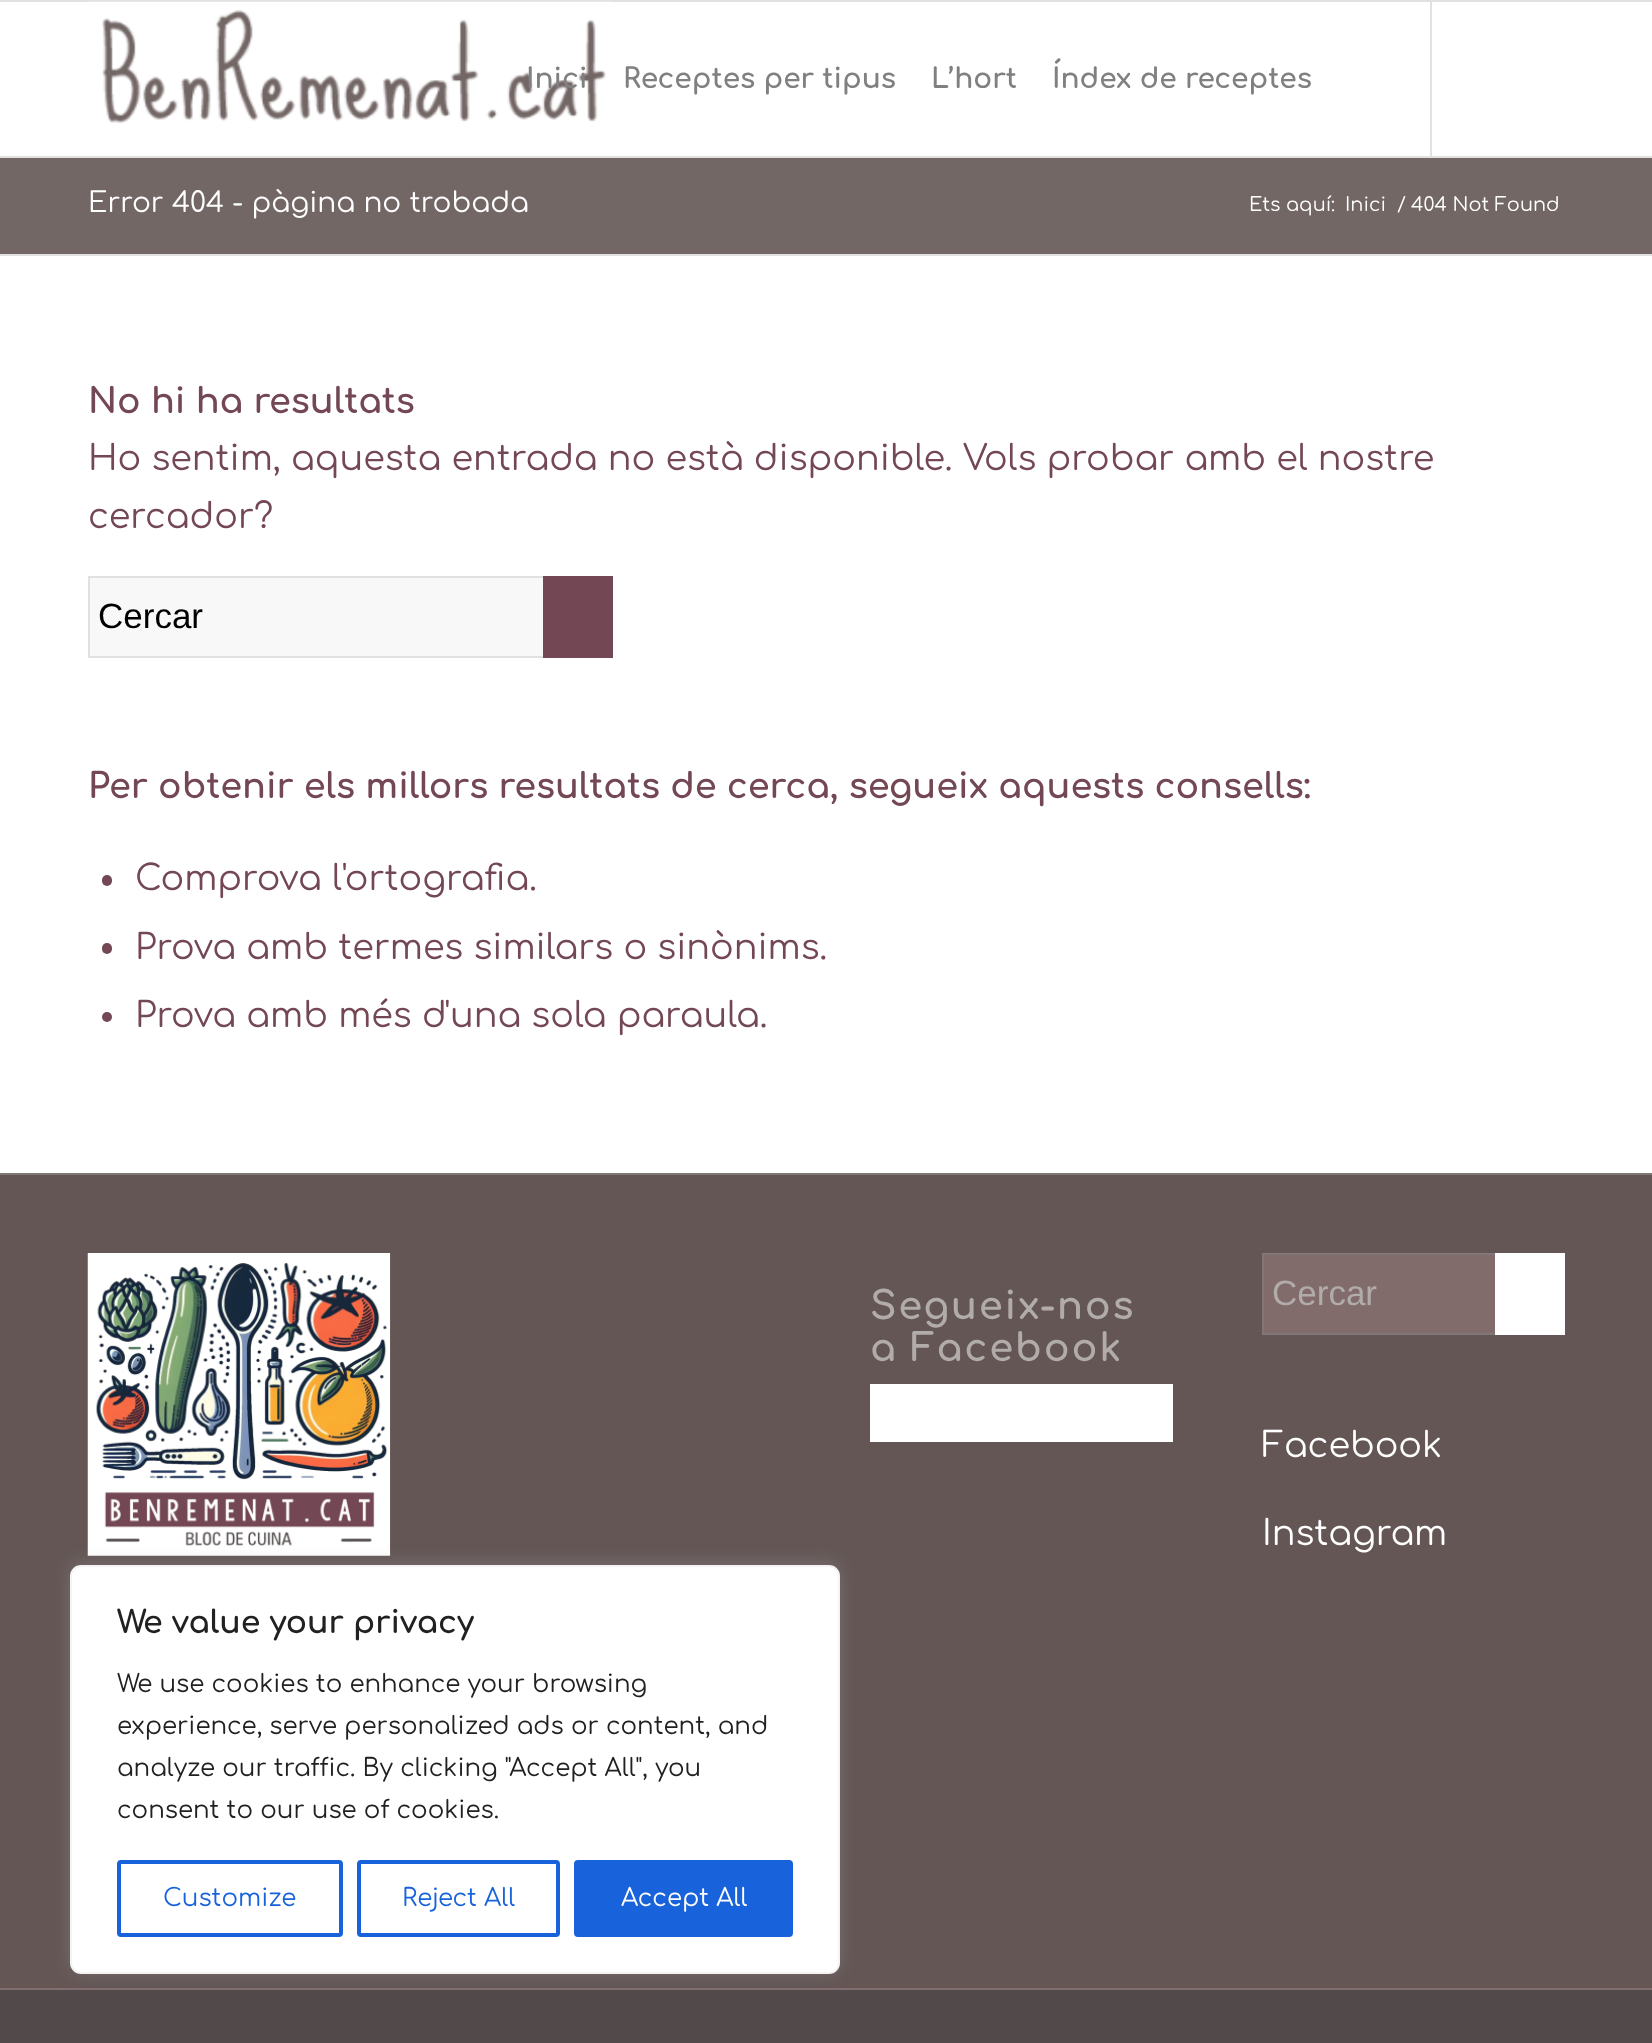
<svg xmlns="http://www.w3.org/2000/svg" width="1652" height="2043">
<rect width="100%" height="100%" fill="#fff"/>
<rect width="1652" height="2" fill="#e1e1e1"/>
<rect y="156" width="1652" height="2" fill="#e1e1e1"/>
<image x="88" y="1" width="524" height="122" href="media/1.png"/>
<rect x="1430" y="2" width="2" height="154" fill="#e1e1e1"/>
<text x="526" y="88" style="font-family:Comfortaa;font-size:28px;font-weight:bold;fill:#808080">Inici</text>
<text x="623" y="88" style="font-family:Comfortaa;font-size:28px;font-weight:bold;fill:#808080">Receptes per tipus</text>
<text x="931" y="88" style="font-family:Comfortaa;font-size:28px;font-weight:bold;fill:#808080">L’hort</text>
<text x="1052" y="88" style="font-family:Comfortaa;font-size:28px;font-weight:bold;fill:#808080">Índex de receptes</text>
<rect y="158" width="1652" height="96" fill="#736766"/>
<text x="88" y="212" style="font-family:Comfortaa;font-size:28px;fill:#fff">Error 404 - pàgina no trobada</text>
<text x="1249" y="211" style="font-family:Comfortaa;font-size:19.25px;fill:#fff">Ets aquí:</text>
<text x="1345" y="211" style="font-family:Comfortaa;font-size:19.25px;fill:#fff">Inici</text>
<text x="1397" y="211" style="font-family:Comfortaa;font-size:19.25px;fill:#fff">/</text>
<text x="1411" y="211" style="font-family:Comfortaa;font-size:19.25px;fill:#fff">404 Not Found</text>
<rect y="254" width="1652" height="2" fill="#e1e1e1"/>
<text x="88" y="413" style="font-family:Comfortaa;font-size:35px;font-weight:bold;fill:#734854">No hi ha resultats</text>
<text x="88" y="470" style="font-family:Comfortaa;font-size:35px;fill:#734854">Ho sentim, aquesta entrada no està disponible. Vols probar amb el nostre</text>
<text x="88" y="528" style="font-family:Comfortaa;font-size:35px;fill:#734854">cercador?</text>
<rect x="90" y="578" width="453" height="78" fill="#f8f8f8"/>
<rect x="89" y="577" width="523" height="80" fill="none" stroke="#e1e1e1" stroke-width="2"/>
<text x="98" y="628" style="font-family:Liberation Sans;font-size:35px;fill:#000">Cercar</text>
<rect x="543" y="576" width="70" height="82" fill="#734854"/>
<text x="88" y="798" style="font-family:Comfortaa;font-size:35px;font-weight:bold;fill:#734854">Per obtenir els millors resultats de cerca, segueix aquests consells:</text>
<rect x="102" y="875" width="10" height="11" rx="5" fill="#734854"/>
<text x="135" y="890" style="font-family:Comfortaa;font-size:35px;fill:#734854">Comprova l'ortografia.</text>
<rect x="102" y="943" width="10" height="11" rx="5" fill="#734854"/>
<text x="135" y="959" style="font-family:Comfortaa;font-size:35px;fill:#734854">Prova amb termes similars o sinònims.</text>
<circle cx="107" cy="1017" r="5" fill="#734854"/>
<text x="135" y="1027" style="font-family:Comfortaa;font-size:35px;fill:#734854">Prova amb més d'una sola paraula.</text>
<rect y="1175" width="1652" height="813" fill="#635655"/>
<rect y="1173" width="1652" height="2" fill="#807877"/>
<image x="87" y="1253" width="304" height="303" href="media/2.png"/>
<text x="870" y="1319" style="font-family:Comfortaa;font-size:38.5px;font-weight:bold;letter-spacing:1.75px;fill:#b1abaa">Segueix-nos</text>
<text x="870" y="1361" style="font-family:Comfortaa;font-size:38.5px;font-weight:bold;letter-spacing:1.75px;fill:#b1abaa">a Facebook</text>
<rect x="870" y="1384" width="303" height="58" fill="#fff"/>
<rect x="1264" y="1255" width="231" height="78" fill="#826c6b"/>
<rect x="1263" y="1254" width="301" height="80" fill="none" stroke="#807877" stroke-width="2"/>
<text x="1272" y="1305" style="font-family:Liberation Sans;font-size:35px;fill:#b1abaa">Cercar</text>
<rect x="1495" y="1253" width="70" height="82" fill="#fff"/>
<text x="1262" y="1457" style="font-family:Comfortaa;font-size:35px;fill:#fff">Facebook</text>
<text x="1262" y="1545" style="font-family:Comfortaa;font-size:35px;fill:#fff">Instagram</text>
<rect y="1990" width="1652" height="53" fill="#524a4a"/>
<rect y="1988" width="1652" height="2" fill="#806e6e"/>
<rect x="70" y="1563" width="770" height="409" rx="11" fill="#acabab4d" filter="blur(9px)"/>
<rect x="71" y="1566" width="768" height="407" rx="10" fill="#fff" stroke="#f4f4f4" stroke-width="2"/>
<text x="117" y="1633" style="font-family:Comfortaa;font-size:31.5px;font-weight:bold;fill:#212121">We value your privacy</text>
<text x="117" y="1692" style="font-family:Comfortaa;font-size:24.5px;fill:#212121">We use cookies to enhance your browsing</text>
<text x="117" y="1734" style="font-family:Comfortaa;font-size:24.5px;fill:#212121">experience, serve personalized ads or content, and</text>
<text x="117" y="1776" style="font-family:Comfortaa;font-size:24.5px;fill:#212121">analyze our traffic. By clicking "Accept All", you</text>
<text x="117" y="1818" style="font-family:Comfortaa;font-size:24.5px;fill:#212121">consent to our use of cookies.</text>
<rect x="119" y="1862" width="222" height="73" rx="2" fill="none" stroke="#1863dc" stroke-width="4"/>
<text x="163" y="1906" style="font-family:Comfortaa;font-size:24.5px;fill:#1863dc">Customize</text>
<rect x="359" y="1862" width="199" height="73" rx="2" fill="none" stroke="#1863dc" stroke-width="4"/>
<text x="402" y="1906" style="font-family:Comfortaa;font-size:24.5px;fill:#1863dc">Reject All</text>
<rect x="576" y="1862" width="215" height="73" rx="2" fill="#1863dc" stroke="#1863dc" stroke-width="4"/>
<text x="621" y="1906" style="font-family:Comfortaa;font-size:24.5px;fill:#fff">Accept All</text>
</svg>
